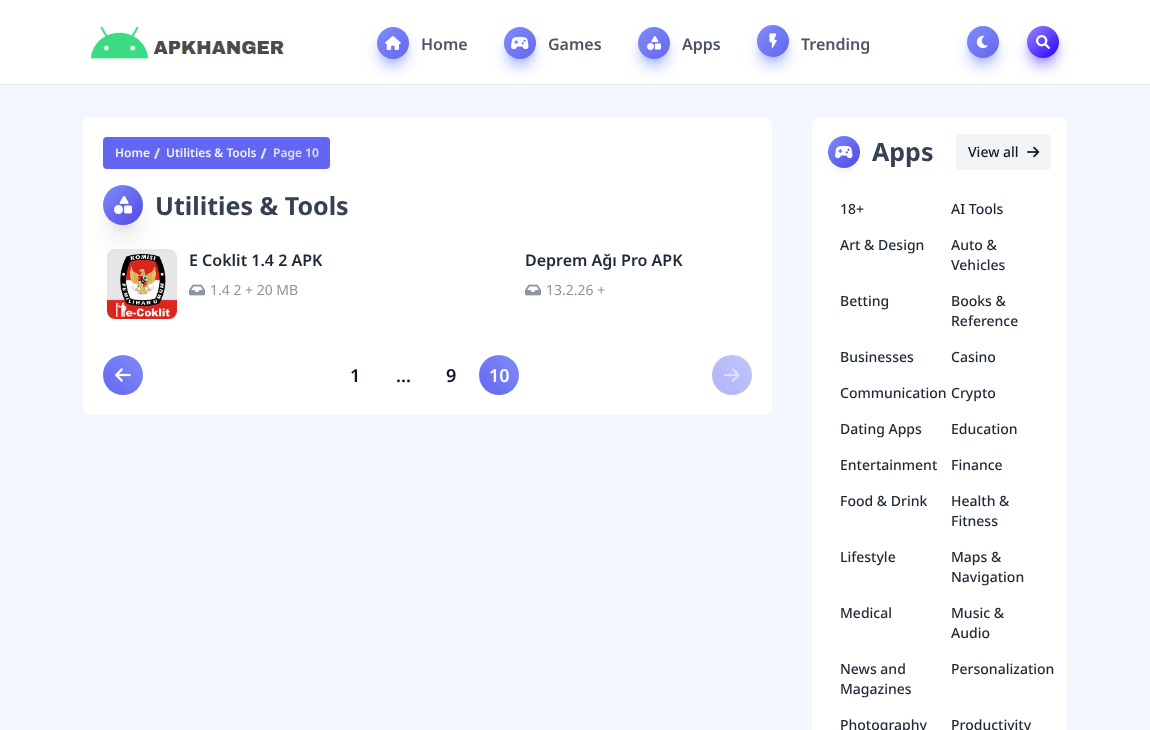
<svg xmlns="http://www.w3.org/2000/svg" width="1150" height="730">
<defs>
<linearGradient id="g1" gradientUnits="userSpaceOnUse" x1="377" y1="27" x2="409" y2="59"><stop offset="0" stop-color="#818cf8"/><stop offset="1" stop-color="#6366f1"/></linearGradient>
<linearGradient id="g2" gradientUnits="userSpaceOnUse" x1="504" y1="27" x2="536" y2="59"><stop offset="0" stop-color="#818cf8"/><stop offset="1" stop-color="#6366f1"/></linearGradient>
<linearGradient id="g3" gradientUnits="userSpaceOnUse" x1="638" y1="27" x2="670" y2="59"><stop offset="0" stop-color="#818cf8"/><stop offset="1" stop-color="#6366f1"/></linearGradient>
<linearGradient id="g4" gradientUnits="userSpaceOnUse" x1="757" y1="25" x2="789" y2="57"><stop offset="0" stop-color="#818cf8"/><stop offset="1" stop-color="#6366f1"/></linearGradient>
<linearGradient id="g5" gradientUnits="userSpaceOnUse" x1="967" y1="26" x2="999" y2="58"><stop offset="0" stop-color="#818cf8"/><stop offset="1" stop-color="#6366f1"/></linearGradient>
<linearGradient id="g6" gradientUnits="userSpaceOnUse" x1="1027" y1="26" x2="1059" y2="58"><stop offset="0" stop-color="#9d85ff"/><stop offset="1" stop-color="#2400ff"/></linearGradient>
<linearGradient id="g7" gradientUnits="userSpaceOnUse" x1="103" y1="185" x2="143" y2="225"><stop offset="0" stop-color="#818cf8"/><stop offset="1" stop-color="#4f46e5"/></linearGradient>
<linearGradient id="g8" gradientUnits="userSpaceOnUse" x1="143" y1="355" x2="103" y2="395"><stop offset="0" stop-color="#818cf8"/><stop offset="1" stop-color="#6366f1"/></linearGradient>
<linearGradient id="g9" gradientUnits="userSpaceOnUse" x1="519" y1="355" x2="479" y2="395"><stop offset="0" stop-color="#818cf8"/><stop offset="1" stop-color="#6366f1"/></linearGradient>
<linearGradient id="g10" gradientUnits="userSpaceOnUse" x1="752" y1="355" x2="712" y2="395"><stop offset="0" stop-color="#c0c6fc"/><stop offset="1" stop-color="#b1b3f8"/></linearGradient>
<linearGradient id="g11" gradientUnits="userSpaceOnUse" x1="828" y1="136" x2="860" y2="168"><stop offset="0" stop-color="#818cf8"/><stop offset="1" stop-color="#4f46e5"/></linearGradient>
</defs>
<rect width="100%" height="100%" fill="#f2f7ff"/>
<rect width="1150" height="84" fill="#fff"/>
<rect y="84" width="1150" height="1" fill="#e5e7eb"/>
<image x="90" y="26" width="194" height="33" href="media/1.png"/>
<rect x="381" y="35" width="24" height="24" rx="12" fill="#a5b4fc" filter="blur(3px)"/>
<rect x="380" y="40" width="26" height="26" rx="13" fill="#a5b4fc" filter="blur(7.5px)"/>
<circle cx="393" cy="43" r="16" fill="url(#g1)"/>
<image x="385" y="36" width="16" height="14" href="media/2.png"/>
<text x="421" y="50" style="font-family:Noto Sans;font-size:16px;font-weight:600;fill:#4b5563">Home</text>
<rect x="508" y="35" width="24" height="24" rx="12" fill="#a5b4fc" filter="blur(3px)"/>
<rect x="507" y="40" width="26" height="26" rx="13" fill="#a5b4fc" filter="blur(7.5px)"/>
<circle cx="520" cy="43" r="16" fill="url(#g2)"/>
<image x="511" y="36" width="18" height="14" href="media/3.png"/>
<text x="548" y="50" style="font-family:Noto Sans;font-size:16px;font-weight:600;fill:#4b5563">Games</text>
<rect x="642" y="35" width="24" height="24" rx="12" fill="#a5b4fc" filter="blur(3px)"/>
<rect x="641" y="40" width="26" height="26" rx="13" fill="#a5b4fc" filter="blur(7.5px)"/>
<circle cx="654" cy="43" r="16" fill="url(#g3)"/>
<image x="647" y="36" width="14" height="14" href="media/4.png"/>
<text x="682" y="50" style="font-family:Noto Sans;font-size:16px;font-weight:600;fill:#4b5563">Apps</text>
<rect x="761" y="33" width="24" height="24" rx="12" fill="#a5b4fc" filter="blur(3px)"/>
<rect x="760" y="38" width="26" height="26" rx="13" fill="#a5b4fc" filter="blur(7.5px)"/>
<circle cx="773" cy="41" r="16" fill="url(#g4)"/>
<image x="769" y="33" width="8" height="16" href="media/5.png"/>
<text x="801" y="50" style="font-family:Noto Sans;font-size:16px;font-weight:600;fill:#4b5563">Trending</text>
<rect x="971" y="34" width="24" height="24" rx="12" fill="#a5b4fc" filter="blur(3px)"/>
<rect x="970" y="39" width="26" height="26" rx="13" fill="#a5b4fc" filter="blur(7.5px)"/>
<circle cx="983" cy="42" r="16" fill="url(#g5)"/>
<image x="976" y="35" width="12" height="14" href="media/6.png"/>
<rect x="1031" y="34" width="24" height="24" rx="12" fill="#9d85ff" filter="blur(3px)"/>
<rect x="1030" y="39" width="26" height="26" rx="13" fill="#9d85ff" filter="blur(7.5px)"/>
<circle cx="1043" cy="42" r="16" fill="url(#g6)"/>
<image x="1036" y="35" width="14" height="14" href="media/7.png"/>
<rect x="83" y="117" width="689" height="298" rx="8" fill="#fff"/>
<rect x="103" y="137" width="227" height="32" rx="4" fill="#6366f1"/>
<text x="115" y="157" style="font-family:Noto Sans;font-size:12px;font-weight:600;fill:#f3f4f6">Home</text>
<path d="M158 148l2 .5l-4 10.5l-2-.5z" fill="#e6e6e6"/>
<text x="166" y="157" style="font-family:Noto Sans;font-size:12px;font-weight:600;fill:#f3f4f6">Utilities &amp; Tools</text>
<path d="M264.5 148l2 .5l-4 10.5l-2-.5z" fill="#e6e6e6"/>
<text x="273" y="157" style="font-family:Noto Sans;font-size:12px;font-weight:600;fill:#e0e0fc">Page 10</text>
<rect x="109" y="199" width="28" height="28" rx="14" fill="#0000001a" filter="blur(5px)"/>
<rect x="108" y="210" width="30" height="30" rx="15" fill="#0000001a" filter="blur(12.5px)"/>
<circle cx="123" cy="205" r="20" fill="url(#g7)"/>
<image x="114" y="196" width="18" height="18" href="media/8.png"/>
<text x="155" y="215" style="font-family:Noto Sans;font-size:25px;font-weight:bold;fill:#374151">Utilities &amp; Tools</text>
<image x="107" y="249" width="70" height="70" href="media/9.png"/>
<text x="189" y="266" style="font-family:Noto Sans;font-size:16px;font-weight:600;fill:#1f2937">E Coklit 1.4 2 APK</text>
<image x="189" y="284" width="16" height="12" href="media/10.png"/>
<text x="210" y="295" style="font-family:Noto Sans;font-size:14px;fill:#8b959e">1.4 2 + 20 MB</text>
<text x="525" y="266" style="font-family:Noto Sans;font-size:16px;font-weight:600;fill:#1f2937">Deprem Ağı Pro APK</text>
<image x="525" y="284" width="16" height="12" href="media/10.png"/>
<text x="546" y="295" style="font-family:Noto Sans;font-size:14px;fill:#8b959e">13.2.26 +</text>
<circle cx="123" cy="375" r="20" fill="url(#g8)"/>
<image x="115" y="368" width="16" height="14" href="media/11.png"/>
<text x="350" y="382" style="font-family:Noto Sans;font-size:18px;font-weight:600;fill:#111827">1</text>
<text x="396" y="382" style="font-family:Noto Sans;font-size:18px;font-weight:600;fill:#111827">...</text>
<text x="446" y="382" style="font-family:Noto Sans;font-size:18px;font-weight:600;fill:#111827">9</text>
<circle cx="499" cy="375" r="20" fill="url(#g9)"/>
<text x="489" y="382" style="font-family:Noto Sans;font-size:18px;font-weight:600;fill:#fff">10</text>
<circle cx="732" cy="375" r="20" fill="url(#g10)"/>
<image x="724" y="368" width="16" height="14" href="media/12.png"/>
<rect x="812" y="117" width="255" height="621" rx="8" fill="#fff"/>
<rect x="834" y="150" width="20" height="20" rx="10" fill="#0000001a" filter="blur(5px)"/>
<circle cx="844" cy="152" r="16" fill="url(#g11)"/>
<image x="835" y="145" width="18" height="14" href="media/13.png"/>
<text x="872" y="161" style="font-family:Noto Sans;font-size:25px;font-weight:bold;fill:#374151">Apps</text>
<rect x="956" y="134" width="95" height="36" rx="4" fill="#f3f4f6"/>
<text x="968" y="157" style="font-family:Noto Sans;font-size:14px;font-weight:500;fill:#111827">View all</text>
<image x="1027" y="146" width="13" height="12" href="media/14.png"/>
<text x="840" y="214" style="font-family:Noto Sans;font-size:14px;font-weight:500;fill:#1f2937">18+</text>
<text x="951" y="214" style="font-family:Noto Sans;font-size:14px;font-weight:500;fill:#1f2937">AI Tools</text>
<text x="840" y="250" style="font-family:Noto Sans;font-size:14px;font-weight:500;fill:#1f2937">Art &amp; Design</text>
<text x="951" y="250" style="font-family:Noto Sans;font-size:14px;font-weight:500;fill:#1f2937">Auto &amp;</text>
<text x="951" y="270" style="font-family:Noto Sans;font-size:14px;font-weight:500;fill:#1f2937">Vehicles</text>
<text x="840" y="306" style="font-family:Noto Sans;font-size:14px;font-weight:500;fill:#1f2937">Betting</text>
<text x="951" y="306" style="font-family:Noto Sans;font-size:14px;font-weight:500;fill:#1f2937">Books &amp;</text>
<text x="951" y="326" style="font-family:Noto Sans;font-size:14px;font-weight:500;fill:#1f2937">Reference</text>
<text x="840" y="362" style="font-family:Noto Sans;font-size:14px;font-weight:500;fill:#1f2937">Businesses</text>
<text x="951" y="362" style="font-family:Noto Sans;font-size:14px;font-weight:500;fill:#1f2937">Casino</text>
<text x="840" y="398" style="font-family:Noto Sans;font-size:14px;font-weight:500;fill:#1f2937">Communication</text>
<text x="951" y="398" style="font-family:Noto Sans;font-size:14px;font-weight:500;fill:#1f2937">Crypto</text>
<text x="840" y="434" style="font-family:Noto Sans;font-size:14px;font-weight:500;fill:#1f2937">Dating Apps</text>
<text x="951" y="434" style="font-family:Noto Sans;font-size:14px;font-weight:500;fill:#1f2937">Education</text>
<text x="840" y="470" style="font-family:Noto Sans;font-size:14px;font-weight:500;fill:#1f2937">Entertainment</text>
<text x="951" y="470" style="font-family:Noto Sans;font-size:14px;font-weight:500;fill:#1f2937">Finance</text>
<text x="840" y="506" style="font-family:Noto Sans;font-size:14px;font-weight:500;fill:#1f2937">Food &amp; Drink</text>
<text x="951" y="506" style="font-family:Noto Sans;font-size:14px;font-weight:500;fill:#1f2937">Health &amp;</text>
<text x="951" y="526" style="font-family:Noto Sans;font-size:14px;font-weight:500;fill:#1f2937">Fitness</text>
<text x="840" y="562" style="font-family:Noto Sans;font-size:14px;font-weight:500;fill:#1f2937">Lifestyle</text>
<text x="951" y="562" style="font-family:Noto Sans;font-size:14px;font-weight:500;fill:#1f2937">Maps &amp;</text>
<text x="951" y="582" style="font-family:Noto Sans;font-size:14px;font-weight:500;fill:#1f2937">Navigation</text>
<text x="840" y="618" style="font-family:Noto Sans;font-size:14px;font-weight:500;fill:#1f2937">Medical</text>
<text x="951" y="618" style="font-family:Noto Sans;font-size:14px;font-weight:500;fill:#1f2937">Music &amp;</text>
<text x="951" y="638" style="font-family:Noto Sans;font-size:14px;font-weight:500;fill:#1f2937">Audio</text>
<text x="840" y="674" style="font-family:Noto Sans;font-size:14px;font-weight:500;fill:#1f2937">News and</text>
<text x="840" y="694" style="font-family:Noto Sans;font-size:14px;font-weight:500;fill:#1f2937">Magazines</text>
<text x="951" y="674" style="font-family:Noto Sans;font-size:14px;font-weight:500;fill:#1f2937">Personalization</text>
<text x="840" y="730" style="font-family:Noto Sans;font-size:14px;font-weight:500;fill:#1f2937">Photography</text>
<text x="951" y="730" style="font-family:Noto Sans;font-size:14px;font-weight:500;fill:#1f2937">Productivity</text>
</svg>
